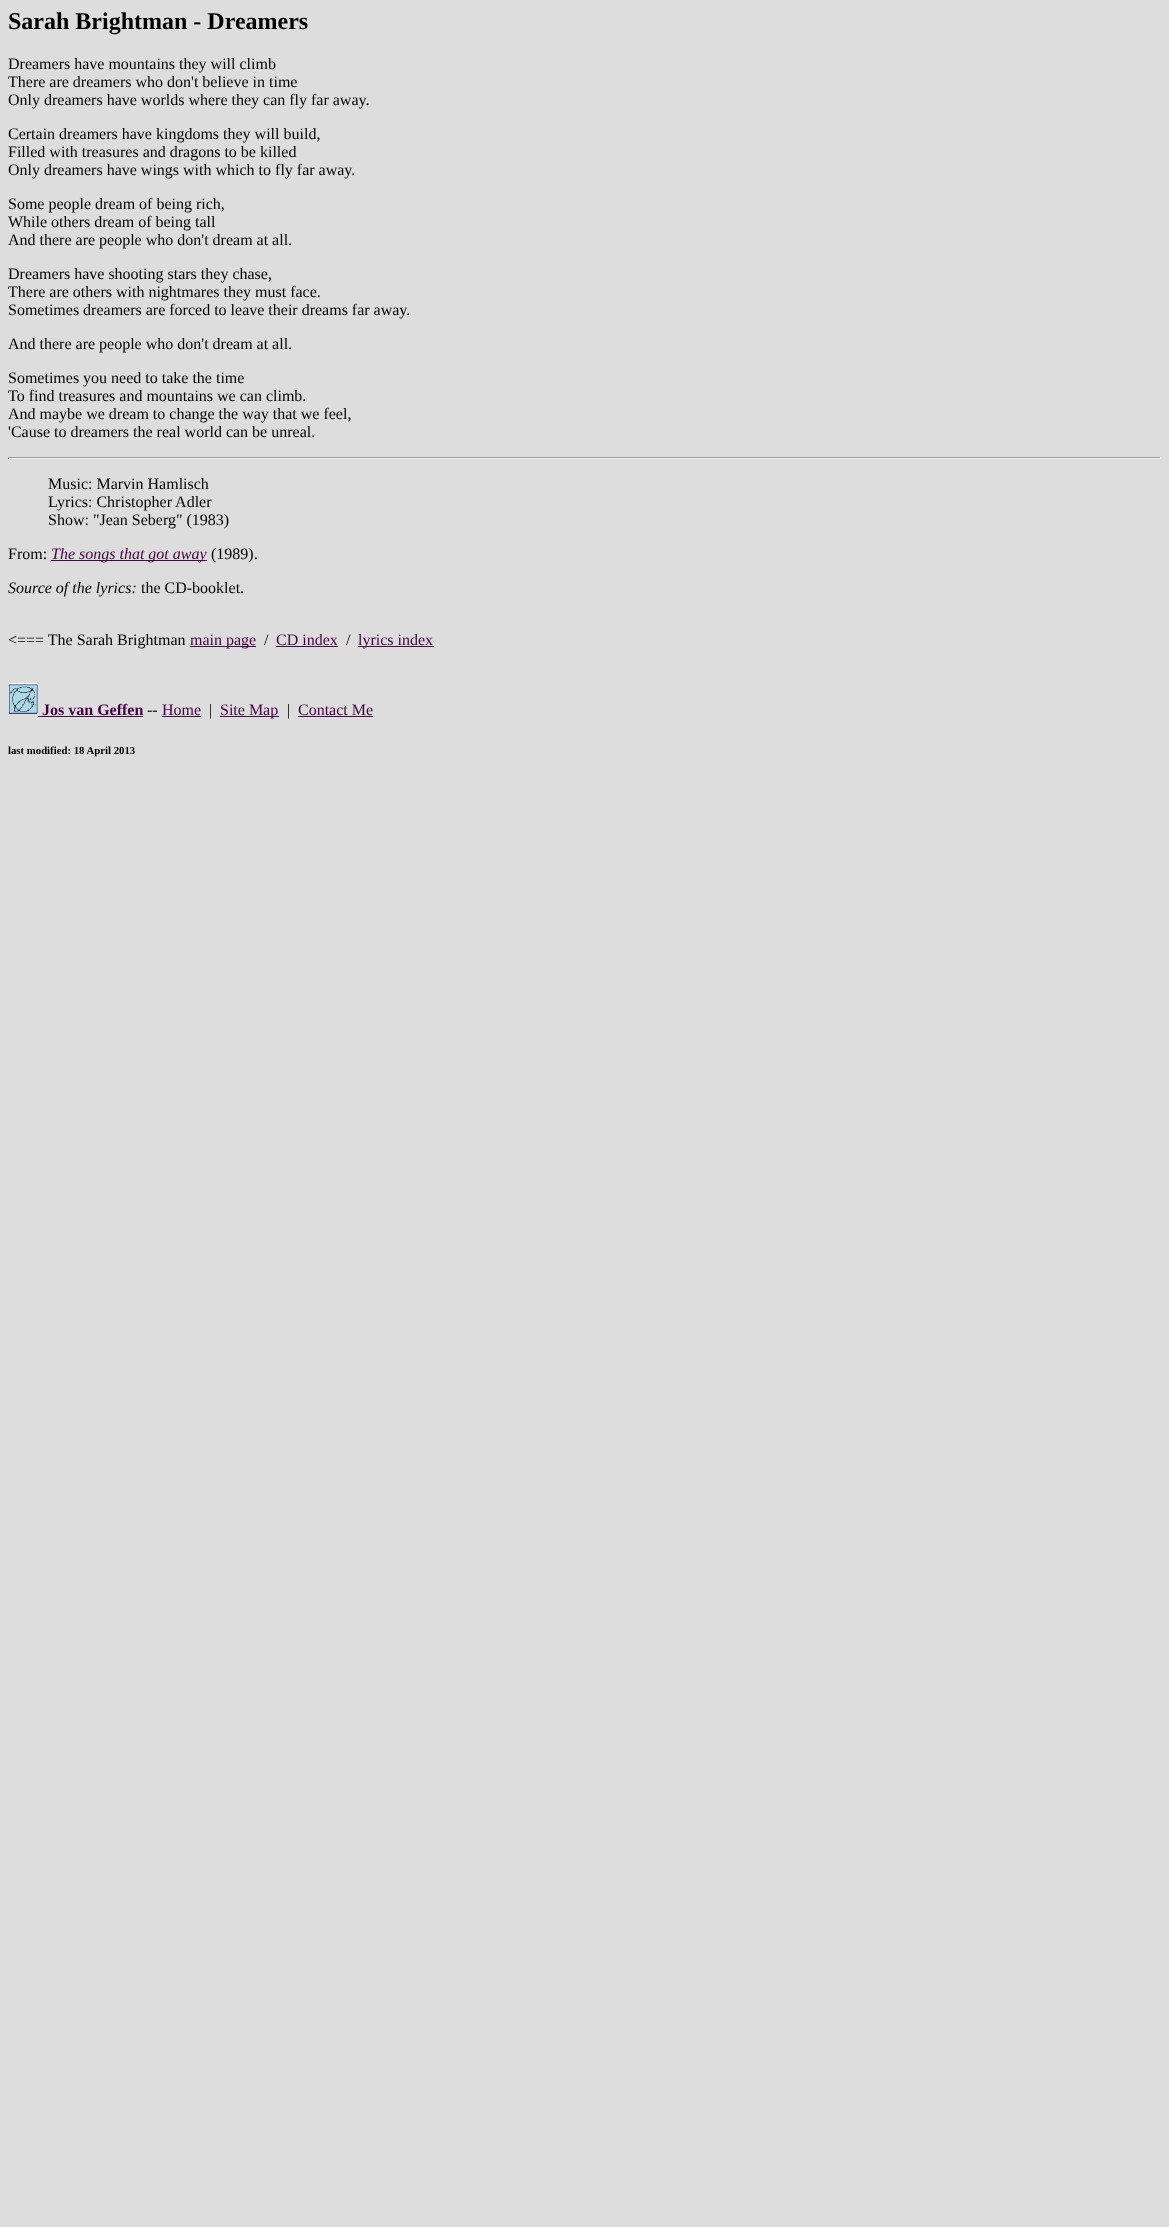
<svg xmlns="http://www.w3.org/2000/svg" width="1169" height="2227">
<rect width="100%" height="100%" fill="#ddd"/>
<text x="8" y="29" style="font-family:Liberation Serif;font-size:24px;font-weight:bold;fill:#000">Sarah Brightman - Dreamers</text>
<text x="8" y="69" style="font-family:Liberation Serif;font-size:16px;fill:#000">Dreamers have mountains they will climb</text>
<text x="8" y="87" style="font-family:Liberation Serif;font-size:16px;fill:#000">There are dreamers who don't believe in time</text>
<text x="8" y="105" style="font-family:Liberation Serif;font-size:16px;fill:#000">Only dreamers have worlds where they can fly far away.</text>
<text x="8" y="139" style="font-family:Liberation Serif;font-size:16px;fill:#000">Certain dreamers have kingdoms they will build,</text>
<text x="8" y="157" style="font-family:Liberation Serif;font-size:16px;fill:#000">Filled with treasures and dragons to be killed</text>
<text x="8" y="175" style="font-family:Liberation Serif;font-size:16px;fill:#000">Only dreamers have wings with which to fly far away.</text>
<text x="8" y="209" style="font-family:Liberation Serif;font-size:16px;fill:#000">Some people dream of being rich,</text>
<text x="8" y="227" style="font-family:Liberation Serif;font-size:16px;fill:#000">While others dream of being tall</text>
<text x="8" y="245" style="font-family:Liberation Serif;font-size:16px;fill:#000">And there are people who don't dream at all.</text>
<text x="8" y="279" style="font-family:Liberation Serif;font-size:16px;fill:#000">Dreamers have shooting stars they chase,</text>
<text x="8" y="297" style="font-family:Liberation Serif;font-size:16px;fill:#000">There are others with nightmares they must face.</text>
<text x="8" y="315" style="font-family:Liberation Serif;font-size:16px;fill:#000">Sometimes dreamers are forced to leave their dreams far away.</text>
<text x="8" y="349" style="font-family:Liberation Serif;font-size:16px;fill:#000">And there are people who don't dream at all.</text>
<text x="8" y="383" style="font-family:Liberation Serif;font-size:16px;fill:#000">Sometimes you need to take the time</text>
<text x="8" y="401" style="font-family:Liberation Serif;font-size:16px;fill:#000">To find treasures and mountains we can climb.</text>
<text x="8" y="419" style="font-family:Liberation Serif;font-size:16px;fill:#000">And maybe we dream to change the way that we feel,</text>
<text x="8" y="437" style="font-family:Liberation Serif;font-size:16px;fill:#000">'Cause to dreamers the real world can be unreal.</text>
<rect x="8" y="457" width="1153" height="1" fill="#9f9f9f"/>
<rect x="1160" y="457" width="1" height="2" fill="#eee"/>
<rect x="8" y="458" width="1153" height="1" fill="#eee"/>
<rect x="8" y="457" width="1" height="2" fill="#9f9f9f"/>
<text x="48" y="489" style="font-family:Liberation Serif;font-size:16px;fill:#000">Music: Marvin Hamlisch</text>
<text x="48" y="507" style="font-family:Liberation Serif;font-size:16px;fill:#000">Lyrics: Christopher Adler</text>
<text x="48" y="525" style="font-family:Liberation Serif;font-size:16px;fill:#000">Show: "Jean Seberg" (1983)</text>
<text x="8" y="559" style="font-family:Liberation Serif;font-size:16px;fill:#000">From:</text>
<rect x="51" y="560" width="156" height="1" fill="#404"/>
<text x="51" y="559" style="font-family:Liberation Serif;font-size:16px;font-style:italic;fill:#404">The songs that got away</text>
<text x="211" y="559" style="font-family:Liberation Serif;font-size:16px;fill:#000">(1989).</text>
<text x="8" y="593" style="font-family:Liberation Serif;font-size:16px;font-style:italic;fill:#000">Source of the lyrics:</text>
<text x="141" y="593" style="font-family:Liberation Serif;font-size:16px;fill:#000">the CD-booklet.</text>
<text x="8" y="645" style="font-family:Liberation Serif;font-size:16px;fill:#000">&lt;=== The Sarah Brightman</text>
<rect x="190" y="646" width="66" height="1" fill="#404"/>
<text x="190" y="645" style="font-family:Liberation Serif;font-size:16px;fill:#404">main page</text>
<text x="264" y="645" style="font-family:Liberation Serif;font-size:16px;fill:#000">/</text>
<text x="276" y="645" style="font-family:Liberation Serif;font-size:16px;fill:#404">CD index</text>
<rect x="276" y="646" width="62" height="1" fill="#404"/>
<text x="346" y="645" style="font-family:Liberation Serif;font-size:16px;fill:#000">/</text>
<rect x="358" y="646" width="76" height="1" fill="#404"/>
<text x="358" y="645" style="font-family:Liberation Serif;font-size:16px;fill:#404">lyrics index</text>
<image x="8" y="683" width="30" height="32" href="media/1.png"/>
<text x="42" y="715" style="font-family:Liberation Serif;font-size:16px;font-weight:bold;fill:#404">Jos van Geffen</text>
<rect x="38" y="716" width="105" height="1" fill="#404"/>
<text x="147" y="715" style="font-family:Liberation Serif;font-size:16px;fill:#000">--</text>
<text x="162" y="715" style="font-family:Liberation Serif;font-size:16px;fill:#404">Home</text>
<rect x="162" y="716" width="39" height="1" fill="#404"/>
<text x="209" y="715" style="font-family:Liberation Serif;font-size:16px;fill:#000">|</text>
<rect x="220" y="716" width="59" height="1" fill="#404"/>
<text x="220" y="715" style="font-family:Liberation Serif;font-size:16px;fill:#404">Site Map</text>
<text x="287" y="715" style="font-family:Liberation Serif;font-size:16px;fill:#000">|</text>
<text x="298" y="715" style="font-family:Liberation Serif;font-size:16px;fill:#404">Contact Me</text>
<rect x="298" y="716" width="75" height="1" fill="#404"/>
<text x="8" y="754" style="font-family:Liberation Serif;font-size:10.75px;font-weight:bold;fill:#000">last modified: 18 April 2013</text>
</svg>
